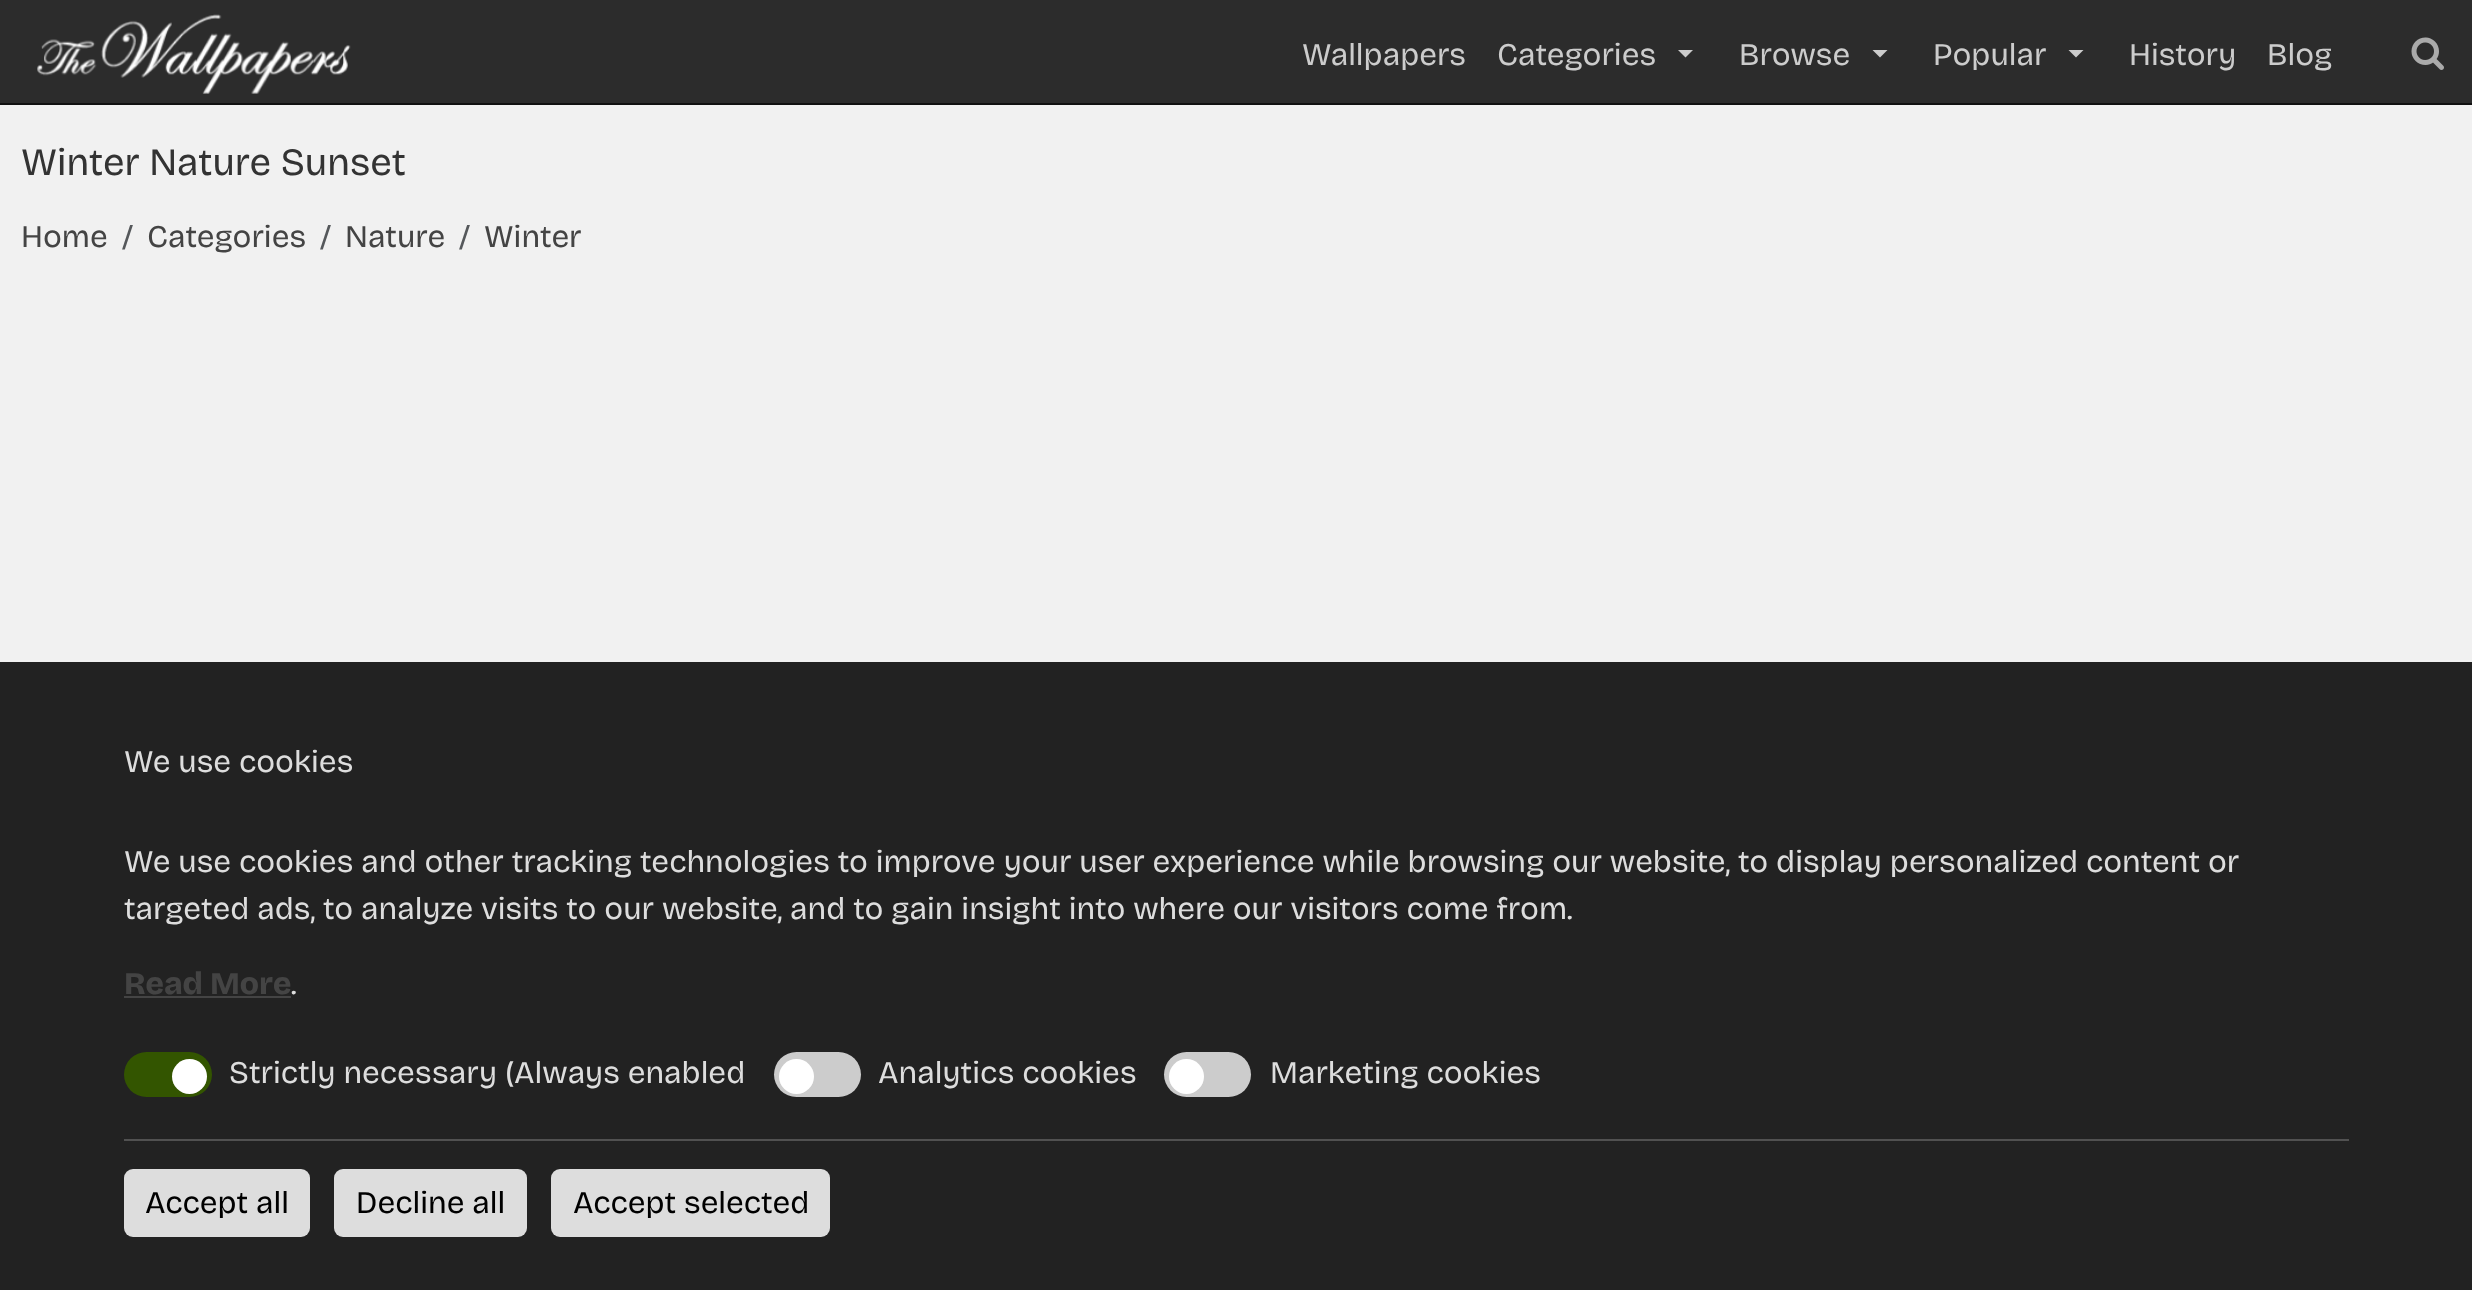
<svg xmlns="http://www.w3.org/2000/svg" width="2472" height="1290">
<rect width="100%" height="100%" fill="#f1f1f1"/>
<rect width="2472" height="103" fill="#2c2c2c"/>
<rect y="103" width="2472" height="2" fill="#111"/>
<image x="37" y="14" width="314" height="80" href="media/1.png"/>
<text x="1302" y="65" style="font-family:'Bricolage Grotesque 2';font-size:31.5px;fill:#ccc">Wallpapers</text>
<text x="1497" y="65" style="font-family:'Bricolage Grotesque 2';font-size:31.5px;fill:#ccc">Categories</text>
<path d="M1685.5 57.5l-7.5-7.5h15z" fill="#ccc"/>
<text x="1739" y="65" style="font-family:'Bricolage Grotesque 2';font-size:31.5px;fill:#ccc">Browse</text>
<path d="M1880 57.5l-7.5-7.5h15z" fill="#ccc"/>
<text x="1933" y="65" style="font-family:'Bricolage Grotesque 2';font-size:31.5px;fill:#ccc">Popular</text>
<path d="M2076 57.5l-7.5-7.5h15z" fill="#ccc"/>
<text x="2129" y="65" style="font-family:'Bricolage Grotesque 2';font-size:31.5px;fill:#ccc">History</text>
<text x="2267" y="65" style="font-family:'Bricolage Grotesque 2';font-size:31.5px;fill:#ccc">Blog</text>
<image x="2411" y="37" width="33" height="33" href="media/2.png"/>
<text x="21" y="175" style="font-family:Bricolage Grotesque;font-size:38.5px;fill:#333">Winter Nature Sunset</text>
<text x="21" y="247" style="font-family:'Bricolage Grotesque 2';font-size:31.5px;fill:#444">Home</text>
<text x="122" y="247" style="font-family:'Bricolage Grotesque 2';font-size:31.5px;fill:#55585b">/</text>
<text x="147" y="247" style="font-family:'Bricolage Grotesque 2';font-size:31.5px;fill:#444">Categories</text>
<text x="320" y="247" style="font-family:'Bricolage Grotesque 2';font-size:31.5px;fill:#55585b">/</text>
<text x="345" y="247" style="font-family:'Bricolage Grotesque 2';font-size:31.5px;fill:#444">Nature</text>
<text x="459" y="247" style="font-family:'Bricolage Grotesque 2';font-size:31.5px;fill:#55585b">/</text>
<text x="484" y="247" style="font-family:'Bricolage Grotesque 2';font-size:31.5px;fill:#444">Winter</text>
<rect y="662" width="2472" height="628" fill="#222"/>
<text x="124" y="772" style="font-family:'Bricolage Grotesque 2';font-size:31.5px;fill:#ddd">We use cookies</text>
<text x="124" y="872" style="font-family:'Bricolage Grotesque 2';font-size:31.5px;fill:#ddd">We use cookies and other tracking technologies to improve your user experience while browsing our website, to display personalized content or</text>
<text x="124" y="919" style="font-family:'Bricolage Grotesque 2';font-size:31.5px;fill:#ddd">targeted ads, to analyze visits to our website, and to gain insight into where our visitors come from.</text>
<text x="124" y="994" style="font-family:Bricolage Grotesque;font-size:31.5px;font-weight:800;fill:#444">Read More</text>
<rect x="124" y="996" width="167" height="2" fill="#444"/>
<text x="291" y="994" style="font-family:'Bricolage Grotesque 2';font-size:31.5px;fill:#ddd">.</text>
<rect x="124" y="1052" width="88" height="45" rx="22.5" fill="#350"/>
<circle cx="189.5" cy="1076.5" r="17.5" fill="#fff"/>
<text x="229" y="1083" style="font-family:'Bricolage Grotesque 2';font-size:31.5px;fill:#ddd">Strictly necessary (Always enabled</text>
<rect x="774" y="1052" width="87" height="45" rx="22.5" fill="#ccc"/>
<circle cx="796.5" cy="1076.5" r="17.5" fill="#fff"/>
<text x="878" y="1083" style="font-family:'Bricolage Grotesque 2';font-size:31.5px;fill:#ddd">Analytics cookies</text>
<rect x="1164" y="1052" width="87" height="45" rx="22.5" fill="#ccc"/>
<circle cx="1186.5" cy="1076.5" r="17.5" fill="#fff"/>
<text x="1270" y="1083" style="font-family:'Bricolage Grotesque 2';font-size:31.5px;fill:#ddd">Marketing cookies</text>
<rect x="124" y="1139" width="2225" height="2" fill="#515151"/>
<rect x="124" y="1169" width="186" height="68" rx="9" fill="#ddd"/>
<text x="145" y="1213" style="font-family:'Bricolage Grotesque 2';font-size:31.5px;fill:#000">Accept all</text>
<rect x="334" y="1169" width="193" height="68" rx="9" fill="#ddd"/>
<text x="356" y="1213" style="font-family:'Bricolage Grotesque 2';font-size:31.5px;fill:#000">Decline all</text>
<rect x="551" y="1169" width="279" height="68" rx="9" fill="#ddd"/>
<text x="573" y="1213" style="font-family:'Bricolage Grotesque 2';font-size:31.5px;fill:#000">Accept selected</text>
</svg>
